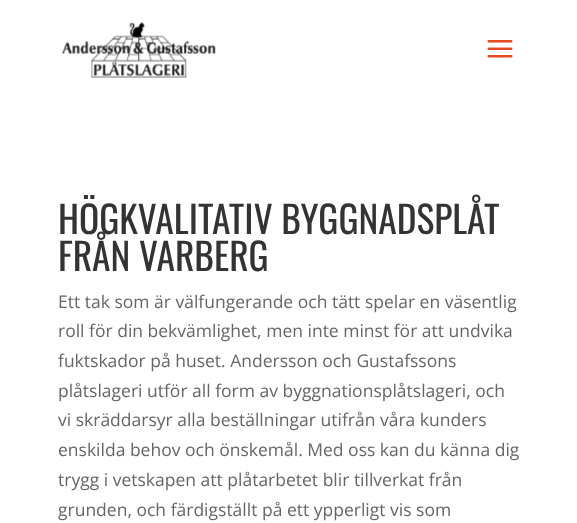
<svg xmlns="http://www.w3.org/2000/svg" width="577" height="523">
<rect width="100%" height="100%" fill="#fff"/>
<image x="62" y="22" width="154" height="56" href="media/1.png"/>
<image x="487" y="40" width="26" height="18" href="media/2.png"/>
<text x="58" y="234" style="font-family:Oswald;font-size:37.5px;fill:#333">HÖGKVALITATIV BYGGNADSPLÅT</text>
<text x="58" y="271" style="font-family:Oswald;font-size:37.5px;fill:#333">FRÅN VARBERG</text>
<text x="58" y="308" style="font-family:Open Sans;font-size:17.5px;fill:#666">Ett tak som är välfungerande och tätt spelar en väsentlig</text>
<text x="58" y="337" style="font-family:Open Sans;font-size:17.5px;fill:#666">roll för din bekvämlighet, men inte minst för att undvika</text>
<text x="58" y="367" style="font-family:Open Sans;font-size:17.5px;fill:#666">fuktskador på huset. Andersson och Gustafssons</text>
<text x="58" y="397" style="font-family:Open Sans;font-size:17.5px;fill:#666">plåtslageri utför all form av byggnationsplåtslageri, och</text>
<text x="58" y="426" style="font-family:Open Sans;font-size:17.5px;fill:#666">vi skräddarsyr alla beställningar utifrån våra kunders</text>
<text x="58" y="456" style="font-family:Open Sans;font-size:17.5px;fill:#666">enskilda behov och önskemål. Med oss kan du känna dig</text>
<text x="58" y="486" style="font-family:Open Sans;font-size:17.5px;fill:#666">trygg i vetskapen att plåtarbetet blir tillverkat från</text>
<text x="58" y="516" style="font-family:Open Sans;font-size:17.5px;fill:#666">grunden, och färdigställt på ett ypperligt vis som</text>
</svg>
